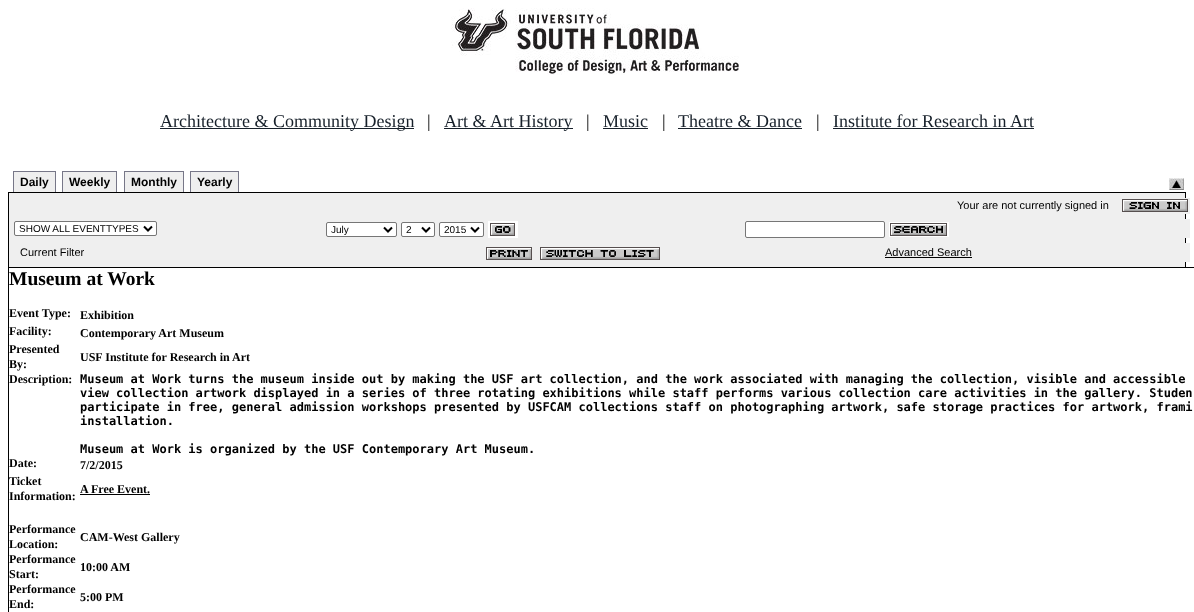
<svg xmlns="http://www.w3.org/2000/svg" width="1194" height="612">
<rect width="100%" height="100%" fill="#fff"/>
<image x="451" y="8" width="288" height="67" href="media/1.png"/>
<rect x="160" y="128" width="254" height="1" fill="#17202a"/>
<text x="160" y="127" style="font-family:Liberation Serif;font-size:18px;fill:#17202a">Architecture &amp; Community Design</text>
<text x="427" y="127" style="font-family:Liberation Serif;font-size:18px;fill:#000">|</text>
<rect x="444" y="128" width="129" height="1" fill="#17202a"/>
<text x="444" y="127" style="font-family:Liberation Serif;font-size:18px;fill:#17202a">Art &amp; Art History</text>
<text x="586" y="127" style="font-family:Liberation Serif;font-size:18px;fill:#000">|</text>
<text x="603" y="127" style="font-family:Liberation Serif;font-size:18px;fill:#17202a">Music</text>
<rect x="603" y="128" width="45" height="1" fill="#17202a"/>
<text x="662" y="127" style="font-family:Liberation Serif;font-size:18px;fill:#000">|</text>
<text x="678" y="127" style="font-family:Liberation Serif;font-size:18px;fill:#17202a">Theatre &amp; Dance</text>
<rect x="678" y="128" width="124" height="1" fill="#17202a"/>
<text x="816" y="127" style="font-family:Liberation Serif;font-size:18px;fill:#000">|</text>
<text x="833" y="127" style="font-family:Liberation Serif;font-size:18px;fill:#17202a">Institute for Research in Art</text>
<rect x="833" y="128" width="201" height="1" fill="#17202a"/>
<rect x="14" y="172" width="41" height="20" fill="#efefef"/>
<text x="20" y="186" style="font-family:Liberation Sans;font-size:12px;font-weight:bold;fill:#000">Daily</text>
<rect x="13" y="171" width="43" height="1" fill="#778"/>
<rect x="55" y="171" width="1" height="21" fill="#778"/>
<rect x="13" y="171" width="1" height="21" fill="#778"/>
<rect x="63" y="172" width="53" height="20" fill="#efefef"/>
<text x="69" y="186" style="font-family:Liberation Sans;font-size:12px;font-weight:bold;fill:#000">Weekly</text>
<rect x="62" y="171" width="55" height="1" fill="#778"/>
<rect x="116" y="171" width="1" height="21" fill="#778"/>
<rect x="62" y="171" width="1" height="21" fill="#778"/>
<rect x="125" y="172" width="58" height="20" fill="#efefef"/>
<text x="131" y="186" style="font-family:Liberation Sans;font-size:12px;font-weight:bold;fill:#000">Monthly</text>
<rect x="124" y="171" width="60" height="1" fill="#778"/>
<rect x="183" y="171" width="1" height="21" fill="#778"/>
<rect x="124" y="171" width="1" height="21" fill="#778"/>
<rect x="191" y="172" width="47" height="20" fill="#efefef"/>
<text x="197" y="186" style="font-family:Liberation Sans;font-size:12px;font-weight:bold;fill:#000">Yearly</text>
<rect x="190" y="171" width="49" height="1" fill="#778"/>
<rect x="238" y="171" width="1" height="21" fill="#778"/>
<rect x="190" y="171" width="1" height="21" fill="#778"/>
<image x="1169" y="178" width="15" height="12" href="media/2.png"/>
<rect x="9" y="193" width="1176" height="74" fill="#efefef"/>
<rect x="8" y="192" width="1178" height="1" fill="#000"/>
<rect x="1185" y="192" width="1" height="75" fill="#000"/>
<rect x="8" y="192" width="1" height="75" fill="#000"/>
<rect x="1185" y="198" width="5" height="16" fill="#efefef"/>
<text x="957" y="209" style="font-family:Liberation Sans;font-size:11px;fill:#000">Your are not currently signed in</text>
<image x="1122" y="199" width="66" height="13" href="media/3.png"/>
<rect x="1185" y="219" width="5" height="19" fill="#efefef"/>
<rect x="14.5" y="221.5" width="142" height="14" rx="1.5" fill="#fff" stroke="#767676"/>
<path d="M144 226.5l4 4l4-4" fill="none" stroke="#000" stroke-width="2"/>
<text x="19" y="232" style="font-family:Liberation Sans;font-size:10px;fill:#000">SHOW ALL EVENTTYPES</text>
<rect x="326.5" y="222.5" width="70" height="14" rx="1.5" fill="#fff" stroke="#767676"/>
<path d="M384 227.5l4 4l4-4" fill="none" stroke="#000" stroke-width="2"/>
<text x="331" y="233" style="font-family:Liberation Sans;font-size:10px;fill:#000">July</text>
<rect x="401.5" y="222.5" width="33" height="14" rx="1.5" fill="#fff" stroke="#767676"/>
<path d="M422 227.5l4 4l4-4" fill="none" stroke="#000" stroke-width="2"/>
<text x="406" y="233" style="font-family:Liberation Sans;font-size:10px;fill:#000">2</text>
<rect x="439.5" y="222.5" width="44" height="14" rx="1.5" fill="#fff" stroke="#767676"/>
<path d="M471 227.5l4 4l4-4" fill="none" stroke="#000" stroke-width="2"/>
<text x="444" y="233" style="font-family:Liberation Sans;font-size:10px;fill:#000">2015</text>
<rect x="488" y="221" width="30" height="17" fill="#fff"/>
<image x="490" y="223" width="25" height="13" href="media/4.png"/>
<rect x="745.5" y="221.5" width="139" height="16" rx="1.5" fill="#fff" stroke="#767676"/>
<rect x="889" y="222" width="60" height="15" fill="#fff"/>
<image x="890" y="223" width="57" height="13" href="media/5.png"/>
<rect x="1185" y="243" width="5" height="19" fill="#efefef"/>
<text x="20" y="256" style="font-family:Liberation Sans;font-size:11px;fill:#000">Current Filter</text>
<image x="486" y="247" width="46" height="13" href="media/6.png"/>
<image x="540" y="247" width="120" height="13" href="media/7.png"/>
<text x="885" y="256" style="font-family:Liberation Sans;font-size:11px;fill:#000">Advanced Search</text>
<rect x="885" y="257" width="87" height="1" fill="#000"/>
<rect x="8.5" y="267.5" width="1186" height="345" fill="none" stroke="#000"/>
<text x="9" y="285" style="font-family:Liberation Serif;font-size:19.5px;font-weight:bold;fill:#000">Museum at Work</text>
<text x="9" y="317" style="font-family:Liberation Serif;font-size:12px;font-weight:bold;fill:#000">Event Type:</text>
<text x="80" y="319" style="font-family:Liberation Serif;font-size:12px;font-weight:bold;fill:#000">Exhibition</text>
<text x="9" y="335" style="font-family:Liberation Serif;font-size:12px;font-weight:bold;fill:#000">Facility:</text>
<text x="80" y="337" style="font-family:Liberation Serif;font-size:12px;font-weight:bold;fill:#000">Contemporary Art Museum</text>
<text x="9" y="353" style="font-family:Liberation Serif;font-size:12px;font-weight:bold;fill:#000">Presented</text>
<text x="9" y="368" style="font-family:Liberation Serif;font-size:12px;font-weight:bold;fill:#000">By:</text>
<text x="80" y="361" style="font-family:Liberation Serif;font-size:12px;font-weight:bold;fill:#000">USF Institute for Research in Art</text>
<text x="9" y="383" style="font-family:Liberation Serif;font-size:12px;font-weight:bold;fill:#000">Description:</text>
<text x="80" y="383" style="font-family:DejaVu Sans Mono;font-size:12px;font-weight:bold;fill:#000">Museum at Work turns the museum inside out by making the USF art collection, and the work associated with managing the collection, visible and accessible</text>
<text x="80" y="397" style="font-family:DejaVu Sans Mono;font-size:12px;font-weight:bold;fill:#000">view collection artwork displayed in a series of three rotating exhibitions while staff performs various collection care activities in the gallery. Studen</text>
<text x="80" y="411" style="font-family:DejaVu Sans Mono;font-size:12px;font-weight:bold;fill:#000">participate in free, general admission workshops presented by USFCAM collections staff on photographing artwork, safe storage practices for artwork, frami</text>
<text x="80" y="425" style="font-family:DejaVu Sans Mono;font-size:12px;font-weight:bold;fill:#000">installation.</text>
<text x="80" y="453" style="font-family:DejaVu Sans Mono;font-size:12px;font-weight:bold;fill:#000">Museum at Work is organized by the USF Contemporary Art Museum.</text>
<text x="9" y="467" style="font-family:Liberation Serif;font-size:12px;font-weight:bold;fill:#000">Date:</text>
<text x="80" y="469" style="font-family:Liberation Serif;font-size:12px;font-weight:bold;fill:#000">7/2/2015</text>
<text x="9" y="485" style="font-family:Liberation Serif;font-size:12px;font-weight:bold;fill:#000">Ticket</text>
<text x="9" y="500" style="font-family:Liberation Serif;font-size:12px;font-weight:bold;fill:#000">Information:</text>
<text x="80" y="493" style="font-family:Liberation Serif;font-size:12px;font-weight:bold;fill:#000">A Free Event.</text>
<rect x="80" y="494" width="70" height="1" fill="#000"/>
<text x="9" y="533" style="font-family:Liberation Serif;font-size:12px;font-weight:bold;fill:#000">Performance</text>
<text x="9" y="548" style="font-family:Liberation Serif;font-size:12px;font-weight:bold;fill:#000">Location:</text>
<text x="80" y="541" style="font-family:Liberation Serif;font-size:12px;font-weight:bold;fill:#000">CAM-West Gallery</text>
<text x="9" y="563" style="font-family:Liberation Serif;font-size:12px;font-weight:bold;fill:#000">Performance</text>
<text x="9" y="578" style="font-family:Liberation Serif;font-size:12px;font-weight:bold;fill:#000">Start:</text>
<text x="80" y="571" style="font-family:Liberation Serif;font-size:12px;font-weight:bold;fill:#000">10:00 AM</text>
<text x="9" y="593" style="font-family:Liberation Serif;font-size:12px;font-weight:bold;fill:#000">Performance</text>
<text x="9" y="608" style="font-family:Liberation Serif;font-size:12px;font-weight:bold;fill:#000">End:</text>
<text x="80" y="601" style="font-family:Liberation Serif;font-size:12px;font-weight:bold;fill:#000">5:00 PM</text>
</svg>
